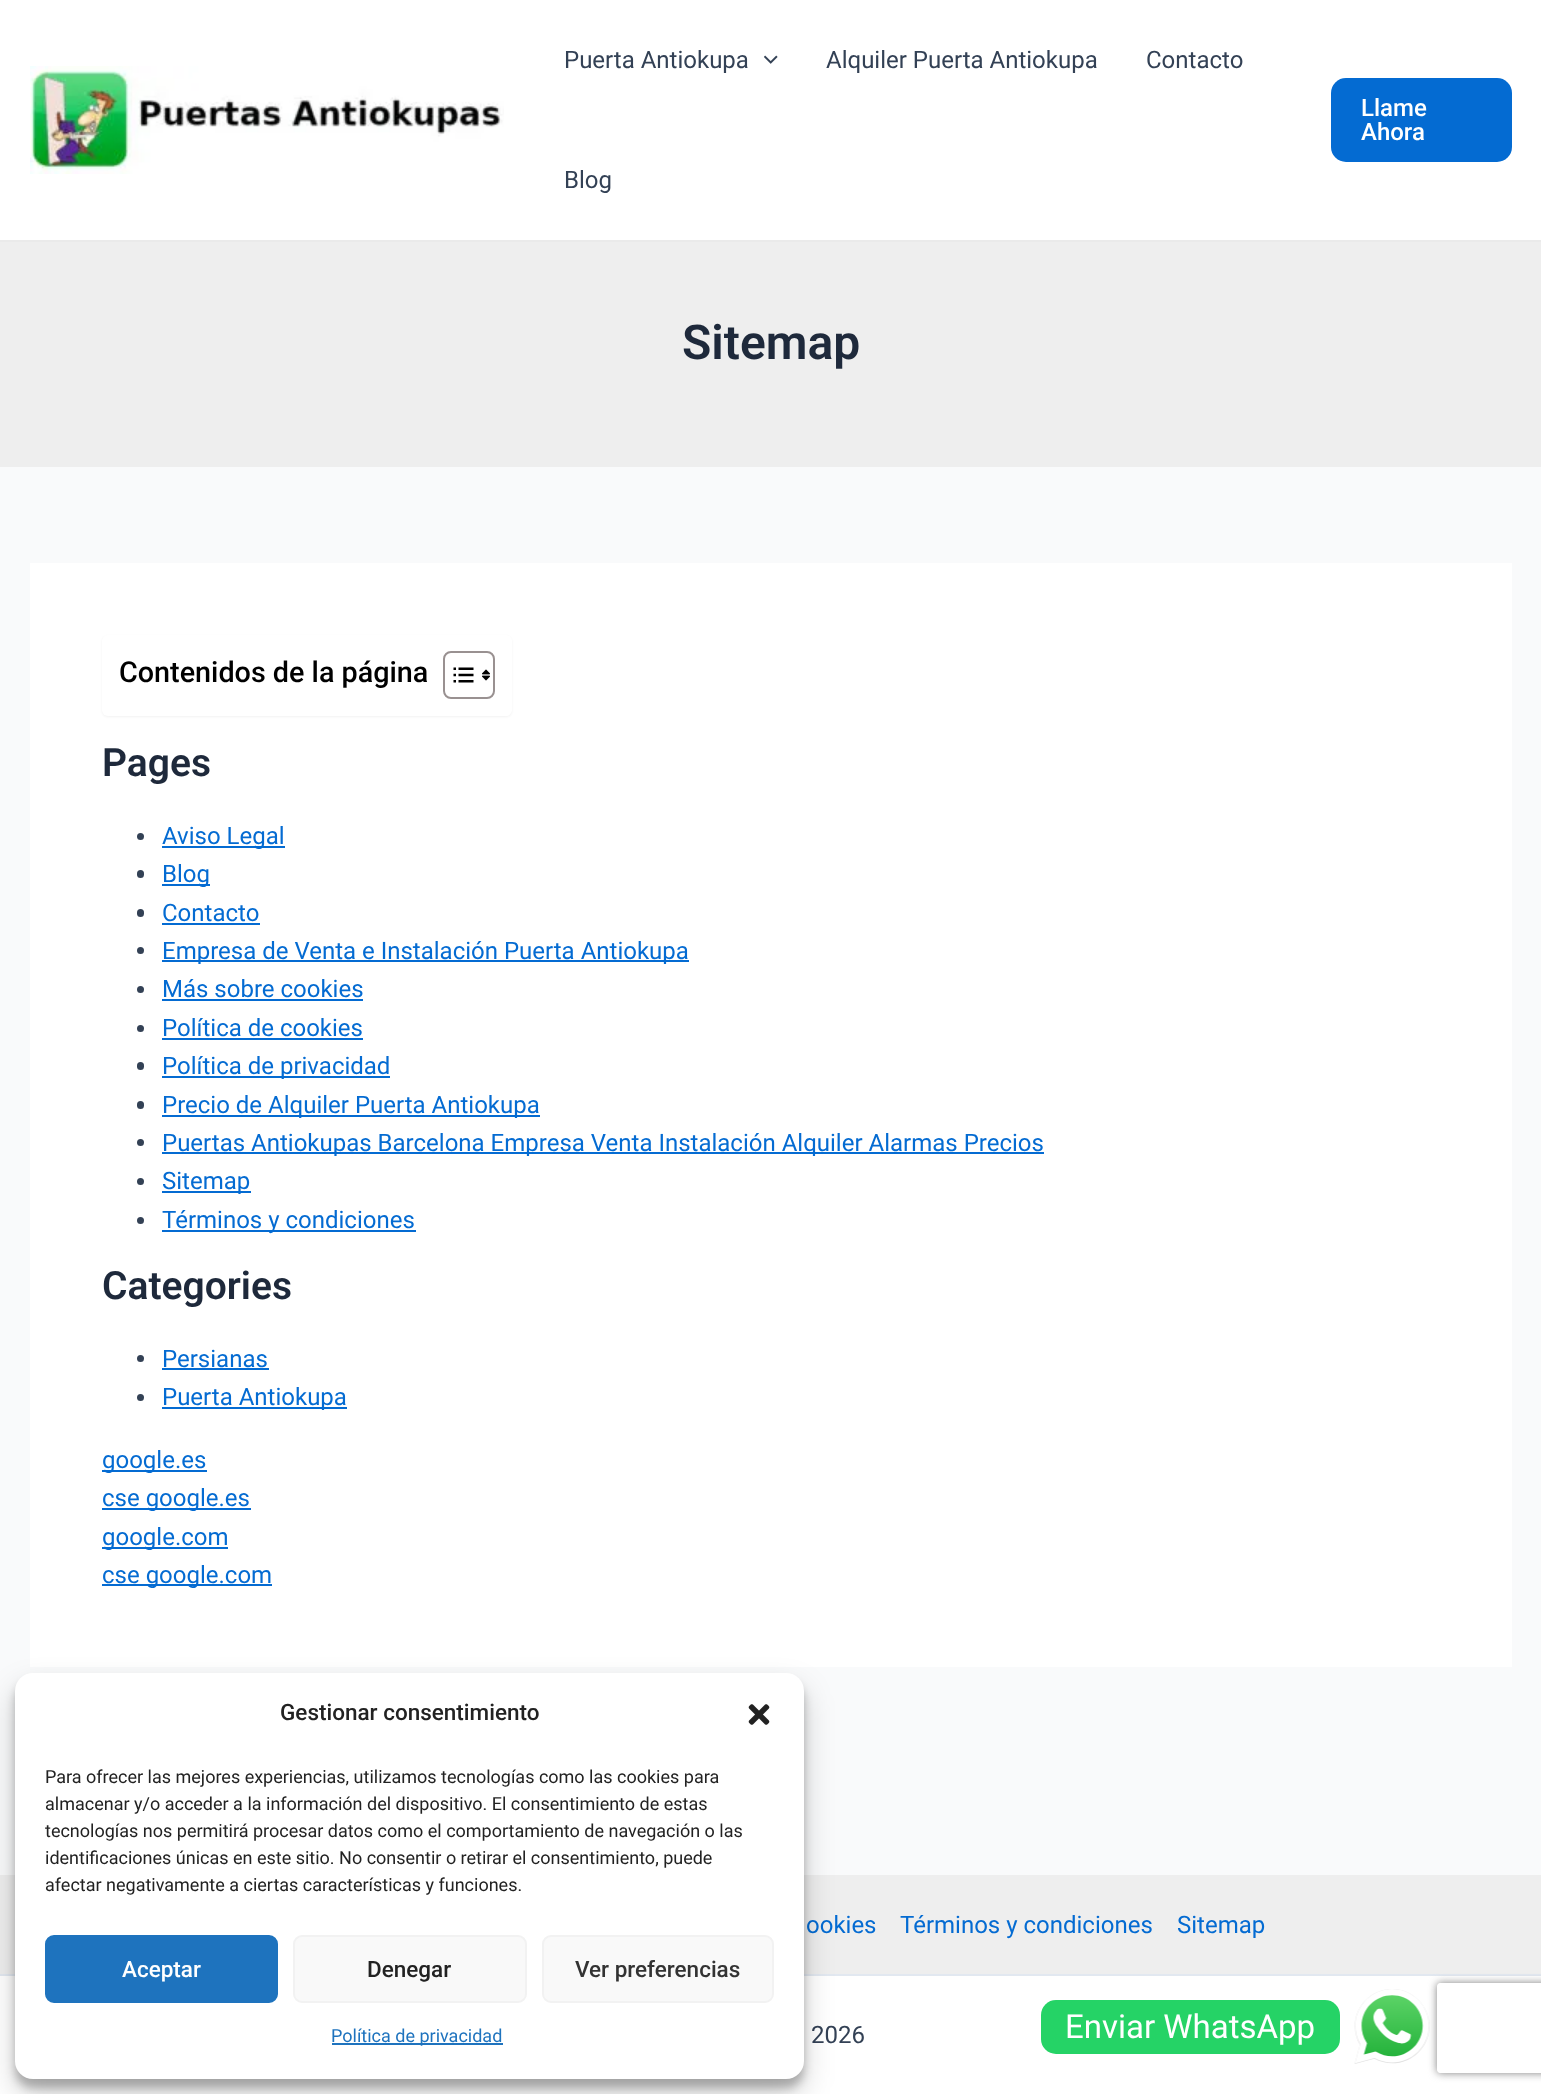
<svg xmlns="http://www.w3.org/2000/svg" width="1541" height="2094">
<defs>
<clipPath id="clip1"><path d="M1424 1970h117v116h-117zm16 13h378c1.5 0 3 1.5 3 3v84c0 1.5-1.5 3-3 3h-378c-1.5 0-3-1.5-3-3v-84c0-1.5 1.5-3 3-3z" clip-rule="evenodd"/></clipPath>
</defs>
<rect width="100%" height="100%" fill="#f9fafb"/>
<rect width="1541" height="240" fill="#fff"/>
<rect y="240" width="1541" height="2" fill="#eaeaea"/>
<image x="30" y="66" width="474" height="108" href="media/1.png"/>
<text x="564" y="68" style="font-family:Roboto;font-size:24px;fill:#334155">Puerta Antiokupa</text>
<image x="764" y="55" width="14" height="9" href="media/2.png"/>
<text x="826" y="68" style="font-family:Roboto;font-size:24px;fill:#334155">Alquiler Puerta Antiokupa</text>
<text x="1146" y="68" style="font-family:Roboto;font-size:24px;fill:#334155">Contacto</text>
<text x="564" y="188" style="font-family:Roboto;font-size:24px;fill:#334155">Blog</text>
<rect x="1331" y="78" width="181" height="84" rx="15" fill="#046bd2"/>
<text x="1361" y="116" style="font-family:Roboto;font-size:24px;font-weight:500;fill:#fff">Llame</text>
<text x="1361" y="140" style="font-family:Roboto;font-size:24px;font-weight:500;fill:#fff">Ahora</text>
<rect y="242" width="1541" height="225" fill="#eee"/>
<text x="682" y="359" style="font-family:Roboto;font-size:48px;font-weight:600;fill:#1e293b">Sitemap</text>
<rect x="30" y="563" width="1482" height="1104" fill="#fff"/>
<rect x="102" y="636" width="410" height="81" rx="6" fill="#0000000d" filter="blur(1px)"/>
<rect x="102" y="635" width="410" height="81" rx="6" fill="#fff"/>
<text x="119" y="682" style="font-family:Roboto;font-size:28.75px;font-weight:500;fill:#000">Contenidos de la página</text>
<rect x="444" y="652" width="50" height="46" rx="7" fill="none" stroke="#999191" stroke-width="2"/>
<image x="453" y="667" width="21" height="16" href="media/3.png"/>
<image x="482" y="669" width="8" height="12" href="media/4.png"/>
<text x="102" y="776" style="font-family:Roboto;font-size:39px;font-weight:600;fill:#1e293b">Pages</text>
<circle cx="140.5" cy="836.5" r="3.5" fill="#334155"/>
<rect x="162" y="846" width="123" height="2" fill="#046bd2"/>
<text x="162" y="844" style="font-family:Roboto;font-size:24px;fill:#046bd2">Aviso Legal</text>
<rect x="137" y="870" width="7" height="8" rx="3.5" fill="#334155"/>
<rect x="162" y="884" width="48" height="2" fill="#046bd2"/>
<text x="162" y="882" style="font-family:Roboto;font-size:24px;fill:#046bd2">Blog</text>
<rect x="137" y="909" width="7" height="8" rx="3.5" fill="#334155"/>
<text x="162" y="921" style="font-family:Roboto;font-size:24px;fill:#046bd2">Contacto</text>
<rect x="162" y="923" width="98" height="2" fill="#046bd2"/>
<circle cx="140.5" cy="950.5" r="3.5" fill="#334155"/>
<rect x="162" y="960" width="527" height="2" fill="#046bd2"/>
<text x="162" y="959" style="font-family:Roboto;font-size:24px;fill:#046bd2">Empresa de Venta e Instalación Puerta Antiokupa</text>
<circle cx="140.5" cy="989.5" r="3.5" fill="#334155"/>
<text x="162" y="997" style="font-family:Roboto;font-size:24px;fill:#046bd2">Más sobre cookies</text>
<rect x="162" y="999" width="201" height="2" fill="#046bd2"/>
<circle cx="140.5" cy="1028.5" r="3.5" fill="#334155"/>
<text x="162" y="1036" style="font-family:Roboto;font-size:24px;fill:#046bd2">Política de cookies</text>
<rect x="162" y="1038" width="201" height="2" fill="#046bd2"/>
<rect x="137" y="1062" width="7" height="8" rx="3.5" fill="#334155"/>
<rect x="162" y="1076" width="228" height="2" fill="#046bd2"/>
<text x="162" y="1074" style="font-family:Roboto;font-size:24px;fill:#046bd2">Política de privacidad</text>
<rect x="137" y="1101" width="7" height="8" rx="3.5" fill="#334155"/>
<rect x="162" y="1115" width="378" height="2" fill="#046bd2"/>
<text x="162" y="1113" style="font-family:Roboto;font-size:24px;fill:#046bd2">Precio de Alquiler Puerta Antiokupa</text>
<circle cx="140.5" cy="1142.5" r="3.5" fill="#334155"/>
<rect x="162" y="1152" width="882" height="2" fill="#046bd2"/>
<text x="162" y="1151" style="font-family:Roboto;font-size:24px;fill:#046bd2">Puertas Antiokupas Barcelona Empresa Venta Instalación Alquiler Alarmas Precios</text>
<circle cx="140.5" cy="1181.5" r="3.5" fill="#334155"/>
<rect x="162" y="1191" width="89" height="2" fill="#046bd2"/>
<text x="162" y="1189" style="font-family:Roboto;font-size:24px;fill:#046bd2">Sitemap</text>
<circle cx="140.5" cy="1220.5" r="3.5" fill="#334155"/>
<rect x="162" y="1230" width="254" height="2" fill="#046bd2"/>
<text x="162" y="1228" style="font-family:Roboto;font-size:24px;fill:#046bd2">Términos y condiciones</text>
<text x="102" y="1299" style="font-family:Roboto;font-size:39px;font-weight:600;fill:#1e293b">Categories</text>
<circle cx="140.5" cy="1358.5" r="3.5" fill="#334155"/>
<text x="162" y="1367" style="font-family:Roboto;font-size:24px;fill:#046bd2">Persianas</text>
<rect x="162" y="1368" width="107" height="2" fill="#046bd2"/>
<circle cx="140.5" cy="1397.5" r="3.5" fill="#334155"/>
<rect x="162" y="1407" width="185" height="2" fill="#046bd2"/>
<text x="162" y="1405" style="font-family:Roboto;font-size:24px;fill:#046bd2">Puerta Antiokupa</text>
<rect x="102" y="1470" width="105" height="2" fill="#046bd2"/>
<text x="102" y="1468" style="font-family:Roboto;font-size:24px;fill:#046bd2">google.es</text>
<rect x="102" y="1508" width="149" height="2" fill="#046bd2"/>
<text x="102" y="1506" style="font-family:Roboto;font-size:24px;fill:#046bd2">cse google.es</text>
<rect x="102" y="1547" width="126" height="2" fill="#046bd2"/>
<text x="102" y="1545" style="font-family:Roboto;font-size:24px;fill:#046bd2">google.com</text>
<rect x="102" y="1584" width="170" height="2" fill="#046bd2"/>
<text x="102" y="1583" style="font-family:Roboto;font-size:24px;fill:#046bd2">cse google.com</text>
<rect y="1875" width="1541" height="99" fill="#eee"/>
<text x="806" y="1933" style="font-family:Roboto;font-size:24px;fill:#046bd2">ookies</text>
<text x="900" y="1933" style="font-family:Roboto;font-size:24px;fill:#046bd2">Términos y condiciones</text>
<text x="1177" y="1933" style="font-family:Roboto;font-size:24px;fill:#046bd2">Sitemap</text>
<rect y="1976" width="1541" height="118" fill="#fff"/>
<rect y="1974" width="1541" height="2" fill="#e2e8f0"/>
<text x="811" y="2043" style="font-family:Roboto;font-size:24px;fill:#334155">2026</text>
<rect x="15" y="1682" width="789" height="406" rx="18" fill="#0000003b" filter="blur(4.5px)"/>
<rect x="15" y="1688" width="789" height="406" rx="18" fill="#00000030" filter="blur(15px)"/>
<rect x="15" y="1673" width="789" height="406" rx="18" fill="#fff"/>
<text x="280" y="1720" style="font-family:Roboto;font-size:22.5px;font-weight:500;fill:#222">Gestionar consentimiento</text>
<image x="748" y="1704" width="22" height="21" href="media/5.png"/>
<text x="45" y="1783" style="font-family:Roboto;font-size:18px;fill:#222">Para ofrecer las mejores experiencias, utilizamos tecnologías como las cookies para</text>
<text x="45" y="1810" style="font-family:Roboto;font-size:18px;fill:#222">almacenar y/o acceder a la información del dispositivo. El consentimiento de estas</text>
<text x="45" y="1837" style="font-family:Roboto;font-size:18px;fill:#222">tecnologías nos permitirá procesar datos como el comportamiento de navegación o las</text>
<text x="45" y="1864" style="font-family:Roboto;font-size:18px;fill:#222">identificaciones únicas en este sitio. No consentir o retirar el consentimiento, puede</text>
<text x="45" y="1891" style="font-family:Roboto;font-size:18px;fill:#222">afectar negativamente a ciertas características y funciones.</text>
<rect x="46" y="1936" width="231" height="66" rx="8" fill="#1e73be" stroke="#1e73be" stroke-width="2"/>
<text x="122" y="1977" style="font-family:Roboto;font-size:22.5px;font-weight:500;fill:#fff">Aceptar</text>
<rect x="294" y="1936" width="232" height="66" rx="8" fill="#f9f9f9" stroke="#f2f2f2" stroke-width="2"/>
<text x="367" y="1977" style="font-family:Roboto;font-size:22.5px;font-weight:500;fill:#222">Denegar</text>
<rect x="543" y="1936" width="230" height="66" rx="8" fill="#f9f9f9" stroke="#f2f2f2" stroke-width="2"/>
<text x="575" y="1977" style="font-family:Roboto;font-size:22.5px;font-weight:500;fill:#333">Ver preferencias</text>
<rect x="332" y="2043" width="171" height="2" fill="#1e73be"/>
<text x="331" y="2042" style="font-family:Roboto;font-size:18px;fill:#1e73be">Política de privacidad</text>
<rect x="1041" y="2000" width="299" height="54" rx="15" fill="#25d366"/>
<text x="1065" y="2038" style="font-family:Roboto;font-size:33px;fill:#fff">Enviar WhatsApp</text>
<g clip-path="url(#clip1)">
<rect x="1437" y="1983" width="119" height="90" rx="3" fill="#808080" filter="blur(4px)"/>
</g>
<image x="1354" y="1989" width="76" height="75" href="media/6.png"/>
</svg>
